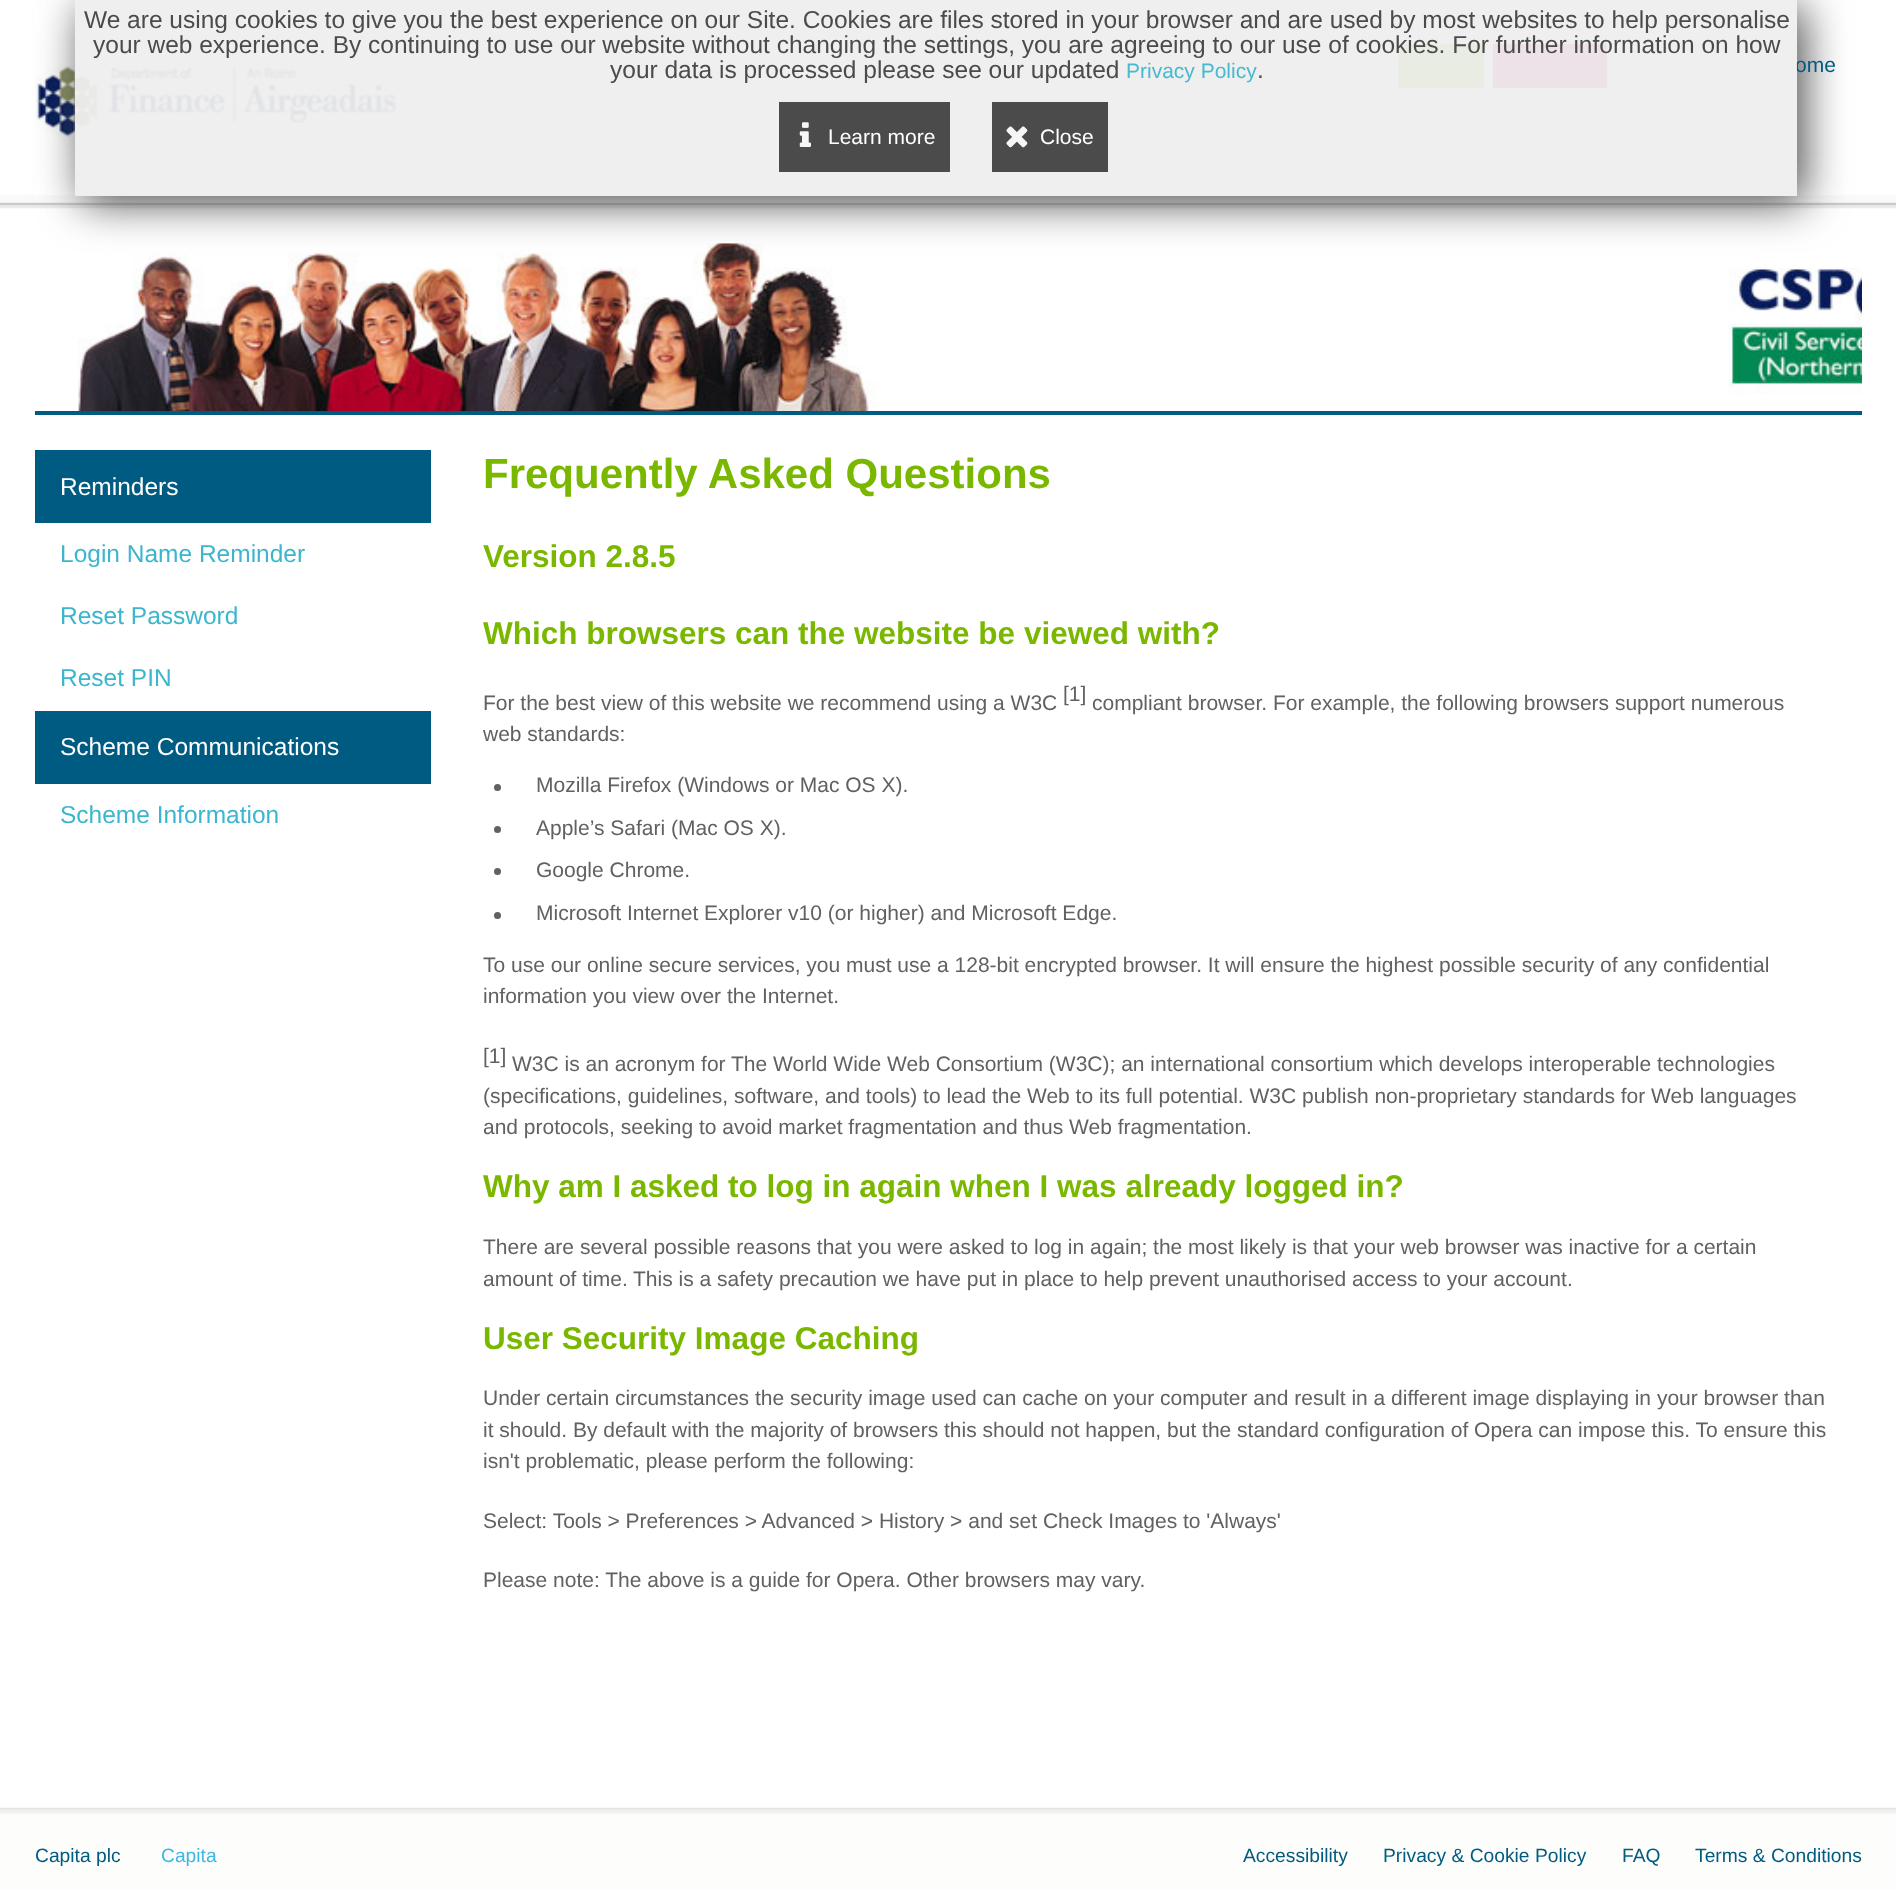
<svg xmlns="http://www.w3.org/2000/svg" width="1896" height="1890">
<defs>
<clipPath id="clip1"><path d="M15 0h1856v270h-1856zm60 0h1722v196h-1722z" clip-rule="evenodd"/></clipPath>
</defs>
<rect width="100%" height="100%" fill="#fff"/>
<image x="0" y="195" width="1896" height="14" href="media/3.png"/>
<image x="35" y="63" width="364" height="83" href="media/4.png"/>
<rect x="1398" y="44" width="86" height="44" fill="#7ab800"/>
<rect x="1493" y="44" width="114" height="44" fill="#ca005d"/>
<image x="77" y="243" width="1785" height="168" href="media/5.png"/>
<g clip-path="url(#clip1)">
<rect x="82" y="7" width="1722" height="196" fill="#414142f2" filter="blur(22px)"/>
</g>
<text x="1795" y="72" style="font-family:Liberation Sans;font-size:21px;fill:#005b82">ome</text>
<rect x="75" width="1722" height="196" fill="#eeeeeef2"/>
<text x="84" y="28" style="font-family:Liberation Sans;font-size:24.5px;fill:#4b4b4b">We are using cookies to give you the best experience on our Site. Cookies are files stored in your browser and are used by most websites to help personalise</text>
<text x="93" y="53" style="font-family:Liberation Sans;font-size:24.5px;fill:#4b4b4b">your web experience. By continuing to use our website without changing the settings, you are agreeing to our use of cookies. For further information on how</text>
<text x="610" y="78" style="font-family:Liberation Sans;font-size:24.5px;fill:#4b4b4b">your data is processed please see our updated</text>
<text x="1126" y="78" style="font-family:Liberation Sans;font-size:21px;fill:#46bad0">Privacy Policy</text>
<text x="1257" y="78" style="font-family:Liberation Sans;font-size:24.5px;fill:#4b4b4b">.</text>
<rect x="779" y="102" width="171" height="70" fill="#4b4b4b"/>
<image x="799" y="122" width="12" height="25" href="media/1.png"/>
<text x="828" y="144" style="font-family:Liberation Sans;font-size:21px;fill:#fff">Learn more</text>
<rect x="992" y="102" width="116" height="70" fill="#4b4b4b"/>
<image x="1006" y="126" width="22" height="22" href="media/2.png"/>
<text x="1040" y="144" style="font-family:Liberation Sans;font-size:21px;fill:#fff">Close</text>
<rect x="35" y="411" width="1827" height="4" fill="#005b82"/>
<rect x="35" y="450" width="396" height="73" fill="#005b82"/>
<text x="60" y="495" style="font-family:Liberation Sans;font-size:24.5px;fill:#fff">Reminders</text>
<text x="60" y="562" style="font-family:Liberation Sans;font-size:24.5px;fill:#3cb6ce">Login Name Reminder</text>
<text x="60" y="624" style="font-family:Liberation Sans;font-size:24.5px;fill:#3cb6ce">Reset Password</text>
<text x="60" y="686" style="font-family:Liberation Sans;font-size:24.5px;fill:#3cb6ce">Reset PIN</text>
<rect x="35" y="711" width="396" height="73" fill="#005b82"/>
<text x="60" y="755" style="font-family:Liberation Sans;font-size:24.5px;fill:#fff">Scheme Communications</text>
<text x="60" y="823" style="font-family:Liberation Sans;font-size:24.5px;fill:#3cb6ce">Scheme Information</text>
<text x="483" y="488" style="font-family:Liberation Sans;font-size:42px;font-weight:bold;fill:#7ab800">Frequently Asked Questions</text>
<text x="483" y="567" style="font-family:Liberation Sans;font-size:31.5px;font-weight:bold;fill:#7ab800">Version 2.8.5</text>
<text x="483" y="644" style="font-family:Liberation Sans;font-size:31.5px;font-weight:bold;fill:#7ab800">Which browsers can the website be viewed with?</text>
<text x="483" y="710" style="font-family:Liberation Sans;font-size:21px;fill:#616161">For the best view of this website we recommend using a W3C</text>
<text x="1063" y="701" style="font-family:Liberation Sans;font-size:21px;fill:#616161">[1]</text>
<text x="1092" y="710" style="font-family:Liberation Sans;font-size:21px;fill:#616161">compliant browser. For example, the following browsers support numerous</text>
<text x="483" y="741" style="font-family:Liberation Sans;font-size:21px;fill:#616161">web standards:</text>
<circle cx="497.5" cy="787.5" r="3.5" fill="#616161"/>
<text x="536" y="792" style="font-family:Liberation Sans;font-size:21px;fill:#616161">Mozilla Firefox (Windows or Mac OS X).</text>
<circle cx="497.5" cy="829.5" r="3.5" fill="#616161"/>
<text x="536" y="835" style="font-family:Liberation Sans;font-size:21px;fill:#616161">Apple’s Safari (Mac OS X).</text>
<circle cx="497.5" cy="871.5" r="3.5" fill="#616161"/>
<text x="536" y="877" style="font-family:Liberation Sans;font-size:21px;fill:#616161">Google Chrome.</text>
<circle cx="497.5" cy="915.5" r="3.5" fill="#616161"/>
<text x="536" y="920" style="font-family:Liberation Sans;font-size:21px;fill:#616161">Microsoft Internet Explorer v10 (or higher) and Microsoft Edge.</text>
<text x="483" y="972" style="font-family:Liberation Sans;font-size:21px;fill:#616161">To use our online secure services, you must use a 128-bit encrypted browser. It will ensure the highest possible security of any confidential</text>
<text x="483" y="1003" style="font-family:Liberation Sans;font-size:21px;fill:#616161">information you view over the Internet.</text>
<text x="483" y="1063" style="font-family:Liberation Sans;font-size:21px;fill:#616161">[1]</text>
<text x="512" y="1071" style="font-family:Liberation Sans;font-size:21px;fill:#616161">W3C is an acronym for The World Wide Web Consortium (W3C); an international consortium which develops interoperable technologies</text>
<text x="483" y="1103" style="font-family:Liberation Sans;font-size:21px;fill:#616161">(specifications, guidelines, software, and tools) to lead the Web to its full potential. W3C publish non-proprietary standards for Web languages</text>
<text x="483" y="1134" style="font-family:Liberation Sans;font-size:21px;fill:#616161">and protocols, seeking to avoid market fragmentation and thus Web fragmentation.</text>
<text x="483" y="1197" style="font-family:Liberation Sans;font-size:31.5px;font-weight:bold;fill:#7ab800">Why am I asked to log in again when I was already logged in?</text>
<text x="483" y="1254" style="font-family:Liberation Sans;font-size:21px;fill:#616161">There are several possible reasons that you were asked to log in again; the most likely is that your web browser was inactive for a certain</text>
<text x="483" y="1286" style="font-family:Liberation Sans;font-size:21px;fill:#616161">amount of time.</text>
<text x="633" y="1286" style="font-family:Liberation Sans;font-size:21px;fill:#616161">This is a safety precaution we have put in place to help prevent unauthorised access to your account.</text>
<text x="483" y="1349" style="font-family:Liberation Sans;font-size:31.5px;font-weight:bold;fill:#7ab800">User Security Image Caching</text>
<text x="483" y="1405" style="font-family:Liberation Sans;font-size:21px;fill:#616161">Under certain circumstances the security image used can cache on your computer and result in a different image displaying in your browser than</text>
<text x="483" y="1437" style="font-family:Liberation Sans;font-size:21px;fill:#616161">it should. By default with the majority of browsers this should not happen, but the standard configuration of Opera can impose this. To ensure this</text>
<text x="483" y="1468" style="font-family:Liberation Sans;font-size:21px;fill:#616161">isn't problematic, please perform the following:</text>
<text x="483" y="1528" style="font-family:Liberation Sans;font-size:21px;fill:#616161">Select: Tools &gt; Preferences &gt; Advanced &gt; History &gt; and set Check Images to 'Always'</text>
<text x="483" y="1587" style="font-family:Liberation Sans;font-size:21px;fill:#616161">Please note: The above is a guide for Opera. Other browsers may vary.</text>
<rect y="1814" width="1896" height="76" fill="#fdfdfb"/>
<image x="0" y="1807" width="1896" height="7" href="media/6.png"/>
<text x="35" y="1862" style="font-family:Liberation Sans;font-size:19.25px;fill:#005b82">Capita plc</text>
<text x="161" y="1862" style="font-family:Liberation Sans;font-size:19.25px;fill:#3db7e4">Capita</text>
<text x="1243" y="1862" style="font-family:Liberation Sans;font-size:19.25px;fill:#005b82">Accessibility</text>
<text x="1383" y="1862" style="font-family:Liberation Sans;font-size:19.25px;fill:#005b82">Privacy &amp; Cookie Policy</text>
<text x="1622" y="1862" style="font-family:Liberation Sans;font-size:19.25px;fill:#005b82">FAQ</text>
<text x="1695" y="1862" style="font-family:Liberation Sans;font-size:19.25px;fill:#005b82">Terms &amp; Conditions</text>
</svg>
